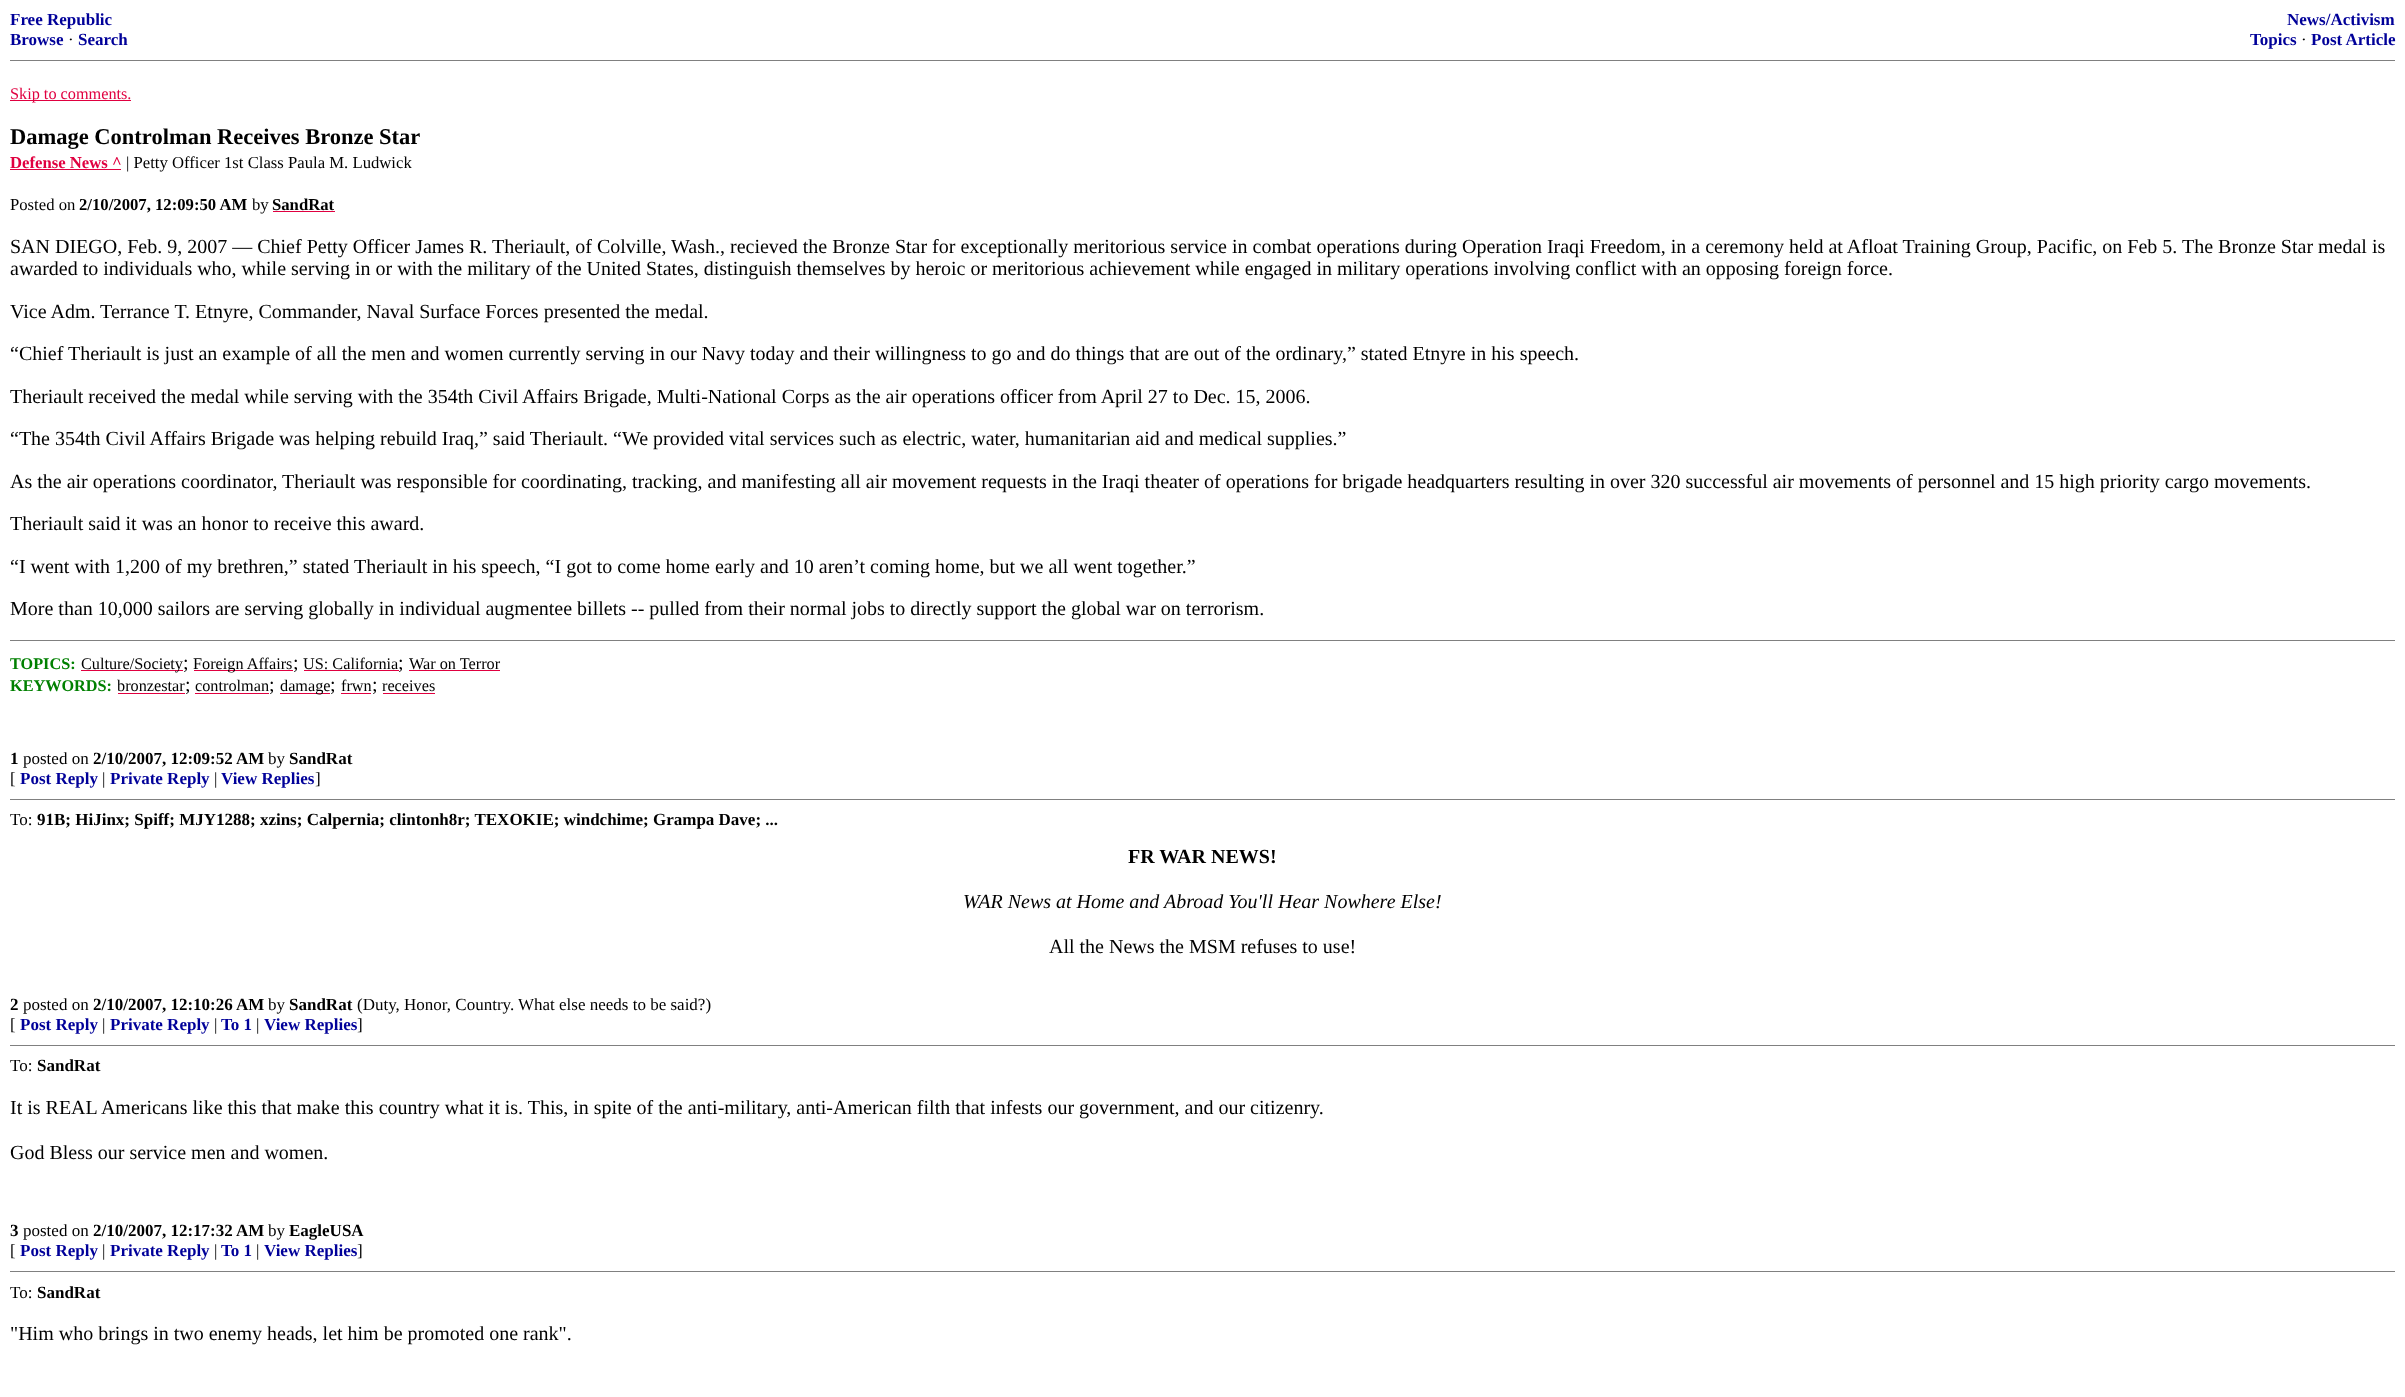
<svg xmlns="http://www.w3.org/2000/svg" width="2405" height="1397">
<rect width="100%" height="100%" fill="#fff"/>
<text x="10" y="25" style="font-family:Liberation Serif;font-size:17px;font-weight:bold;fill:#009">Free Republic</text>
<text x="10" y="45" style="font-family:Liberation Serif;font-size:17px;font-weight:bold;fill:#009">Browse</text>
<text x="68" y="45" style="font-family:Liberation Serif;font-size:17px;fill:#000">·</text>
<text x="78" y="45" style="font-family:Liberation Serif;font-size:17px;font-weight:bold;fill:#009">Search</text>
<text x="2287" y="25" style="font-family:Liberation Serif;font-size:17px;font-weight:bold;fill:#009">News/Activism</text>
<text x="2250" y="45" style="font-family:Liberation Serif;font-size:17px;font-weight:bold;fill:#009">Topics</text>
<text x="2301" y="45" style="font-family:Liberation Serif;font-size:17px;fill:#000">·</text>
<text x="2311" y="45" style="font-family:Liberation Serif;font-size:17px;font-weight:bold;fill:#009">Post Article</text>
<rect x="10" y="60" width="2385" height="1" fill="#808080"/>
<rect x="10" y="100" width="121" height="1" fill="#e00040"/>
<text x="10" y="99" style="font-family:Liberation Serif;font-size:16.25px;fill:#e00040">Skip to comments.</text>
<text x="10" y="144" style="font-family:Liberation Serif;font-size:22.5px;font-weight:bold;fill:#000">Damage Controlman Receives Bronze Star</text>
<text x="10" y="168" style="font-family:Liberation Serif;font-size:16.7px;font-weight:bold;fill:#e00040">Defense News ^</text>
<rect x="10" y="169" width="111" height="1" fill="#e00040"/>
<text x="126" y="168" style="font-family:Liberation Serif;font-size:16.7px;fill:#000">| Petty Officer 1st Class Paula M. Ludwick</text>
<text x="10" y="210" style="font-family:Liberation Serif;font-size:16.7px;fill:#000">Posted on</text>
<text x="79" y="210" style="font-family:Liberation Serif;font-size:16.7px;font-weight:bold;fill:#000">2/10/2007, 12:09:50 AM</text>
<text x="252" y="210" style="font-family:Liberation Serif;font-size:16.7px;fill:#000">by</text>
<text x="272" y="210" style="font-family:Liberation Serif;font-size:16.7px;font-weight:bold;fill:#000">SandRat</text>
<rect x="273" y="211" width="62" height="1" fill="#e00040"/>
<text x="10" y="253" style="font-family:Liberation Serif;font-size:20px;fill:#000">SAN DIEGO, Feb. 9, 2007 — Chief Petty Officer James R. Theriault, of Colville, Wash., recieved the Bronze Star for exceptionally meritorious service in combat operations during Operation Iraqi Freedom, in a ceremony held at Afloat Training Group, Pacific, on Feb 5. The Bronze Star medal is</text>
<text x="10" y="275" style="font-family:Liberation Serif;font-size:20px;fill:#000">awarded to individuals who, while serving in or with the military of the United States, distinguish themselves by heroic or meritorious achievement while engaged in military operations involving conflict with an opposing foreign force.</text>
<text x="10" y="318" style="font-family:Liberation Serif;font-size:20px;fill:#000">Vice Adm. Terrance T. Etnyre, Commander, Naval Surface Forces presented the medal.</text>
<text x="10" y="360" style="font-family:Liberation Serif;font-size:20px;fill:#000">“Chief Theriault is just an example of all the men and women currently serving in our Navy today and their willingness to go and do things that are out of the ordinary,” stated Etnyre in his speech.</text>
<text x="10" y="403" style="font-family:Liberation Serif;font-size:20px;fill:#000">Theriault received the medal while serving with the 354th Civil Affairs Brigade, Multi-National Corps as the air operations officer from April 27 to Dec. 15, 2006.</text>
<text x="10" y="445" style="font-family:Liberation Serif;font-size:20px;fill:#000">“The 354th Civil Affairs Brigade was helping rebuild Iraq,” said Theriault. “We provided vital services such as electric, water, humanitarian aid and medical supplies.”</text>
<text x="10" y="488" style="font-family:Liberation Serif;font-size:20px;fill:#000">As the air operations coordinator, Theriault was responsible for coordinating, tracking, and manifesting all air movement requests in the Iraqi theater of operations for brigade headquarters resulting in over 320 successful air movements of personnel and 15 high priority cargo movements.</text>
<text x="10" y="530" style="font-family:Liberation Serif;font-size:20px;fill:#000">Theriault said it was an honor to receive this award.</text>
<text x="10" y="573" style="font-family:Liberation Serif;font-size:20px;fill:#000">“I went with 1,200 of my brethren,” stated Theriault in his speech, “I got to come home early and 10 aren’t coming home, but we all went together.”</text>
<text x="10" y="615" style="font-family:Liberation Serif;font-size:20px;fill:#000">More than 10,000 sailors are serving globally in individual augmentee billets -- pulled from their normal jobs to directly support the global war on terrorism.</text>
<rect x="10" y="640" width="2385" height="1" fill="#808080"/>
<text x="10" y="669" style="font-family:Liberation Serif;font-size:16.25px;font-weight:bold;fill:#008000">TOPICS:</text>
<rect x="81" y="670" width="102" height="1" fill="#e00040"/>
<text x="81" y="669" style="font-family:Liberation Serif;font-size:16.25px;fill:#000">Culture/Society</text>
<text x="183" y="669" style="font-family:Liberation Serif;font-size:20px;fill:#000">;</text>
<rect x="194" y="670" width="99" height="1" fill="#e00040"/>
<text x="193" y="669" style="font-family:Liberation Serif;font-size:16.25px;fill:#000">Foreign Affairs</text>
<text x="293" y="669" style="font-family:Liberation Serif;font-size:20px;fill:#000">;</text>
<text x="303" y="669" style="font-family:Liberation Serif;font-size:16.25px;fill:#000">US: California</text>
<rect x="304" y="670" width="95" height="1" fill="#e00040"/>
<text x="398" y="669" style="font-family:Liberation Serif;font-size:20px;fill:#000">;</text>
<text x="409" y="669" style="font-family:Liberation Serif;font-size:16.25px;fill:#000">War on Terror</text>
<rect x="409" y="670" width="91" height="1" fill="#e00040"/>
<text x="10" y="691" style="font-family:Liberation Serif;font-size:16.25px;font-weight:bold;fill:#008000">KEYWORDS:</text>
<text x="117" y="691" style="font-family:Liberation Serif;font-size:16.25px;fill:#000">bronzestar</text>
<rect x="118" y="693" width="67" height="1" fill="#e00040"/>
<text x="185" y="691" style="font-family:Liberation Serif;font-size:20px;fill:#000">;</text>
<text x="195" y="691" style="font-family:Liberation Serif;font-size:16.25px;fill:#000">controlman</text>
<rect x="195" y="693" width="74" height="1" fill="#e00040"/>
<text x="269" y="691" style="font-family:Liberation Serif;font-size:20px;fill:#000">;</text>
<rect x="280" y="693" width="50" height="1" fill="#e00040"/>
<text x="280" y="691" style="font-family:Liberation Serif;font-size:16.25px;fill:#000">damage</text>
<text x="330" y="691" style="font-family:Liberation Serif;font-size:20px;fill:#000">;</text>
<text x="341" y="691" style="font-family:Liberation Serif;font-size:16.25px;fill:#000">frwn</text>
<rect x="341" y="693" width="30" height="1" fill="#e00040"/>
<text x="372" y="691" style="font-family:Liberation Serif;font-size:20px;fill:#000">;</text>
<text x="382" y="691" style="font-family:Liberation Serif;font-size:16.25px;fill:#000">receives</text>
<rect x="383" y="693" width="52" height="1" fill="#e00040"/>
<text x="10" y="764" style="font-family:Liberation Serif;font-size:17px;font-weight:bold;fill:#000">1</text>
<text x="23" y="764" style="font-family:Liberation Serif;font-size:17px;fill:#000">posted on</text>
<text x="93" y="764" style="font-family:Liberation Serif;font-size:17px;font-weight:bold;fill:#000">2/10/2007, 12:09:52 AM</text>
<text x="268" y="764" style="font-family:Liberation Serif;font-size:17px;fill:#000">by</text>
<text x="289" y="764" style="font-family:Liberation Serif;font-size:17px;font-weight:bold;fill:#000">SandRat</text>
<text x="10" y="784" style="font-family:Liberation Serif;font-size:17px;fill:#000">[</text>
<text x="20" y="784" style="font-family:Liberation Serif;font-size:17px;font-weight:bold;fill:#009">Post Reply</text>
<text x="102" y="784" style="font-family:Liberation Serif;font-size:17px;fill:#000">|</text>
<text x="110" y="784" style="font-family:Liberation Serif;font-size:17px;font-weight:bold;fill:#009">Private Reply</text>
<text x="214" y="784" style="font-family:Liberation Serif;font-size:17px;fill:#000">|</text>
<text x="221" y="784" style="font-family:Liberation Serif;font-size:17px;font-weight:bold;fill:#009">View Replies</text>
<text x="315" y="784" style="font-family:Liberation Serif;font-size:17px;fill:#000">]</text>
<rect x="10" y="799" width="2385" height="1" fill="#808080"/>
<text x="10" y="825" style="font-family:Liberation Serif;font-size:17px;fill:#000">To:</text>
<text x="37" y="825" style="font-family:Liberation Serif;font-size:17px;font-weight:bold;fill:#000">91B; HiJinx; Spiff; MJY1288; xzins; Calpernia; clintonh8r; TEXOKIE; windchime; Grampa Dave; ...</text>
<text x="1128" y="863" style="font-family:Liberation Serif;font-size:20px;font-weight:bold;fill:#000">FR WAR NEWS!</text>
<text x="963" y="908" style="font-family:Liberation Serif;font-size:20px;font-style:italic;fill:#000">WAR News at Home and Abroad You'll Hear Nowhere Else!</text>
<text x="1049" y="953" style="font-family:Liberation Serif;font-size:20px;fill:#000">All the News the MSM refuses to use!</text>
<text x="10" y="1010" style="font-family:Liberation Serif;font-size:17px;font-weight:bold;fill:#000">2</text>
<text x="23" y="1010" style="font-family:Liberation Serif;font-size:17px;fill:#000">posted on</text>
<text x="93" y="1010" style="font-family:Liberation Serif;font-size:17px;font-weight:bold;fill:#000">2/10/2007, 12:10:26 AM</text>
<text x="268" y="1010" style="font-family:Liberation Serif;font-size:17px;fill:#000">by</text>
<text x="289" y="1010" style="font-family:Liberation Serif;font-size:17px;font-weight:bold;fill:#000">SandRat</text>
<text x="357" y="1010" style="font-family:Liberation Serif;font-size:17px;fill:#000">(Duty, Honor, Country.</text>
<text x="518" y="1010" style="font-family:Liberation Serif;font-size:17px;fill:#000">What else needs to be said?)</text>
<text x="10" y="1030" style="font-family:Liberation Serif;font-size:17px;fill:#000">[</text>
<text x="20" y="1030" style="font-family:Liberation Serif;font-size:17px;font-weight:bold;fill:#009">Post Reply</text>
<text x="102" y="1030" style="font-family:Liberation Serif;font-size:17px;fill:#000">|</text>
<text x="110" y="1030" style="font-family:Liberation Serif;font-size:17px;font-weight:bold;fill:#009">Private Reply</text>
<text x="214" y="1030" style="font-family:Liberation Serif;font-size:17px;fill:#000">|</text>
<text x="221" y="1030" style="font-family:Liberation Serif;font-size:17px;font-weight:bold;fill:#009">To 1</text>
<text x="256" y="1030" style="font-family:Liberation Serif;font-size:17px;fill:#000">|</text>
<text x="264" y="1030" style="font-family:Liberation Serif;font-size:17px;font-weight:bold;fill:#009">View Replies</text>
<text x="357" y="1030" style="font-family:Liberation Serif;font-size:17px;fill:#000">]</text>
<rect x="10" y="1045" width="2385" height="1" fill="#808080"/>
<text x="10" y="1071" style="font-family:Liberation Serif;font-size:17px;fill:#000">To:</text>
<text x="37" y="1071" style="font-family:Liberation Serif;font-size:17px;font-weight:bold;fill:#000">SandRat</text>
<text x="10" y="1114" style="font-family:Liberation Serif;font-size:20px;fill:#000">It is REAL Americans like this that make this country what it is. This, in spite of the anti-military, anti-American filth that infests our government, and our citizenry.</text>
<text x="10" y="1159" style="font-family:Liberation Serif;font-size:20px;fill:#000">God Bless our service men and women.</text>
<text x="10" y="1236" style="font-family:Liberation Serif;font-size:17px;font-weight:bold;fill:#000">3</text>
<text x="23" y="1236" style="font-family:Liberation Serif;font-size:17px;fill:#000">posted on</text>
<text x="93" y="1236" style="font-family:Liberation Serif;font-size:17px;font-weight:bold;fill:#000">2/10/2007, 12:17:32 AM</text>
<text x="268" y="1236" style="font-family:Liberation Serif;font-size:17px;fill:#000">by</text>
<text x="289" y="1236" style="font-family:Liberation Serif;font-size:17px;font-weight:bold;fill:#000">EagleUSA</text>
<text x="10" y="1256" style="font-family:Liberation Serif;font-size:17px;fill:#000">[</text>
<text x="20" y="1256" style="font-family:Liberation Serif;font-size:17px;font-weight:bold;fill:#009">Post Reply</text>
<text x="102" y="1256" style="font-family:Liberation Serif;font-size:17px;fill:#000">|</text>
<text x="110" y="1256" style="font-family:Liberation Serif;font-size:17px;font-weight:bold;fill:#009">Private Reply</text>
<text x="214" y="1256" style="font-family:Liberation Serif;font-size:17px;fill:#000">|</text>
<text x="221" y="1256" style="font-family:Liberation Serif;font-size:17px;font-weight:bold;fill:#009">To 1</text>
<text x="256" y="1256" style="font-family:Liberation Serif;font-size:17px;fill:#000">|</text>
<text x="264" y="1256" style="font-family:Liberation Serif;font-size:17px;font-weight:bold;fill:#009">View Replies</text>
<text x="357" y="1256" style="font-family:Liberation Serif;font-size:17px;fill:#000">]</text>
<rect x="10" y="1271" width="2385" height="1" fill="#808080"/>
<text x="10" y="1298" style="font-family:Liberation Serif;font-size:17px;fill:#000">To:</text>
<text x="37" y="1298" style="font-family:Liberation Serif;font-size:17px;font-weight:bold;fill:#000">SandRat</text>
<text x="10" y="1340" style="font-family:Liberation Serif;font-size:20px;fill:#000">"Him who brings in two enemy heads, let him be promoted one rank".</text>
</svg>
